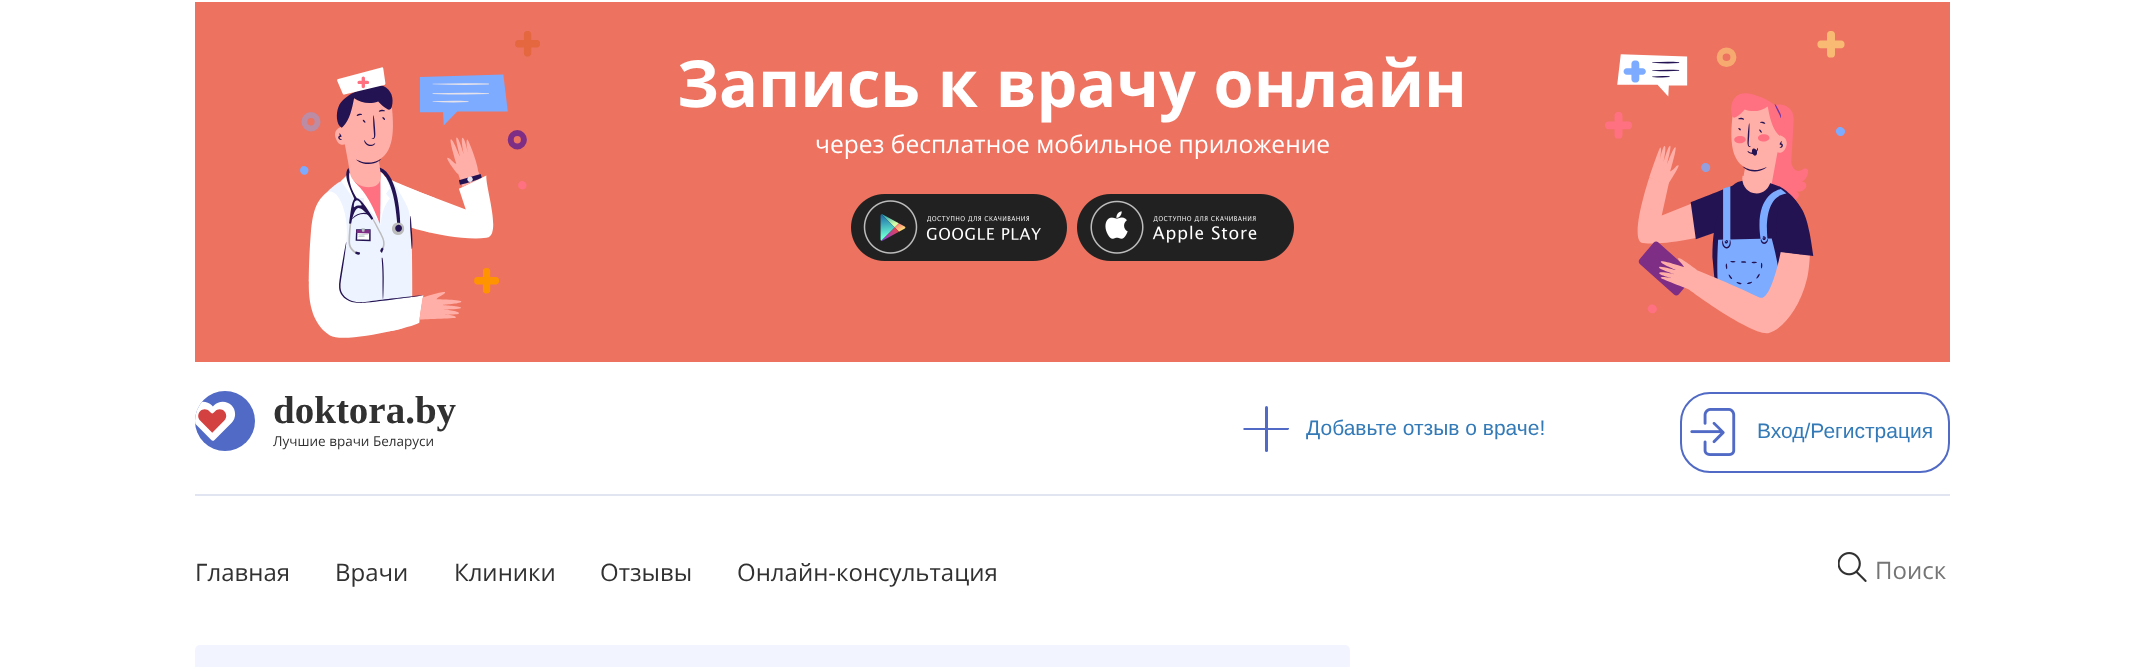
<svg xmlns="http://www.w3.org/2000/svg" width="2145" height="667">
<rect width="100%" height="100%" fill="#fff"/>
<rect x="195" y="2" width="1755" height="360" fill="#ed7260"/>
<image x="300" y="31" width="240" height="307" href="media/1.png"/>
<text x="677" y="107" word-spacing="1" style="font-family:Open Sans;font-size:64.75px;font-weight:bold;fill:#fff">Запись к врачу онлайн</text>
<text x="815" y="153" style="font-family:Open Sans;font-size:24.6px;fill:#fff">через бесплатное мобильное приложение</text>
<image x="851" y="194" width="216" height="67" href="media/2.png"/>
<image x="1077" y="194" width="217" height="67" href="media/3.png"/>
<image x="1605" y="31" width="240" height="303" href="media/4.png"/>
<rect x="195" y="494" width="1755" height="2" fill="#e1e5f2"/>
<image x="195" y="391" width="60" height="60" href="media/5.png"/>
<text x="273" y="423" style="font-family:Liberation Serif;font-size:39px;font-weight:bold;fill:#313131">doktora.by</text>
<text x="273" y="446" style="font-family:Open Sans;font-size:13.5px;fill:#313131">Лучшие врачи Беларуси</text>
<text x="1306" y="435" style="font-family:Liberation Sans;font-size:21px;fill:#337ab7">Добавьте отзыв о враче!</text>
<rect x="1265" y="406" width="3" height="46" rx="1.5" fill="#506ac5"/>
<path d="M1289 429l-1 1h-43h-1l-1-1l1-1h44h1z" fill="#506ac5"/>
<rect x="1681" y="393" width="268" height="79" rx="29" fill="none" stroke="#506ac5" stroke-width="2"/>
<image x="1690" y="408" width="46" height="48" href="media/6.png"/>
<text x="1757" y="438" style="font-family:Liberation Sans;font-size:21px;fill:#337ab7">Вход/Регистрация</text>
<text x="195" y="581" style="font-family:Open Sans;font-size:24px;fill:#313131">Главная</text>
<text x="335" y="581" style="font-family:Open Sans;font-size:24px;fill:#313131">Врачи</text>
<text x="454" y="581" style="font-family:Open Sans;font-size:24px;fill:#313131">Клиники</text>
<text x="600" y="581" style="font-family:Open Sans;font-size:24px;fill:#313131">Отзывы</text>
<text x="737" y="581" style="font-family:Open Sans;font-size:24px;fill:#313131">Онлайн-консультация</text>
<image x="1838" y="552" width="29" height="30" href="media/7.png"/>
<text x="1875" y="579" style="font-family:Open Sans;font-size:24px;fill:#757575">Поиск</text>
<rect x="195" y="645" width="1155" height="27" rx="5" fill="#f2f5ff"/>
</svg>
